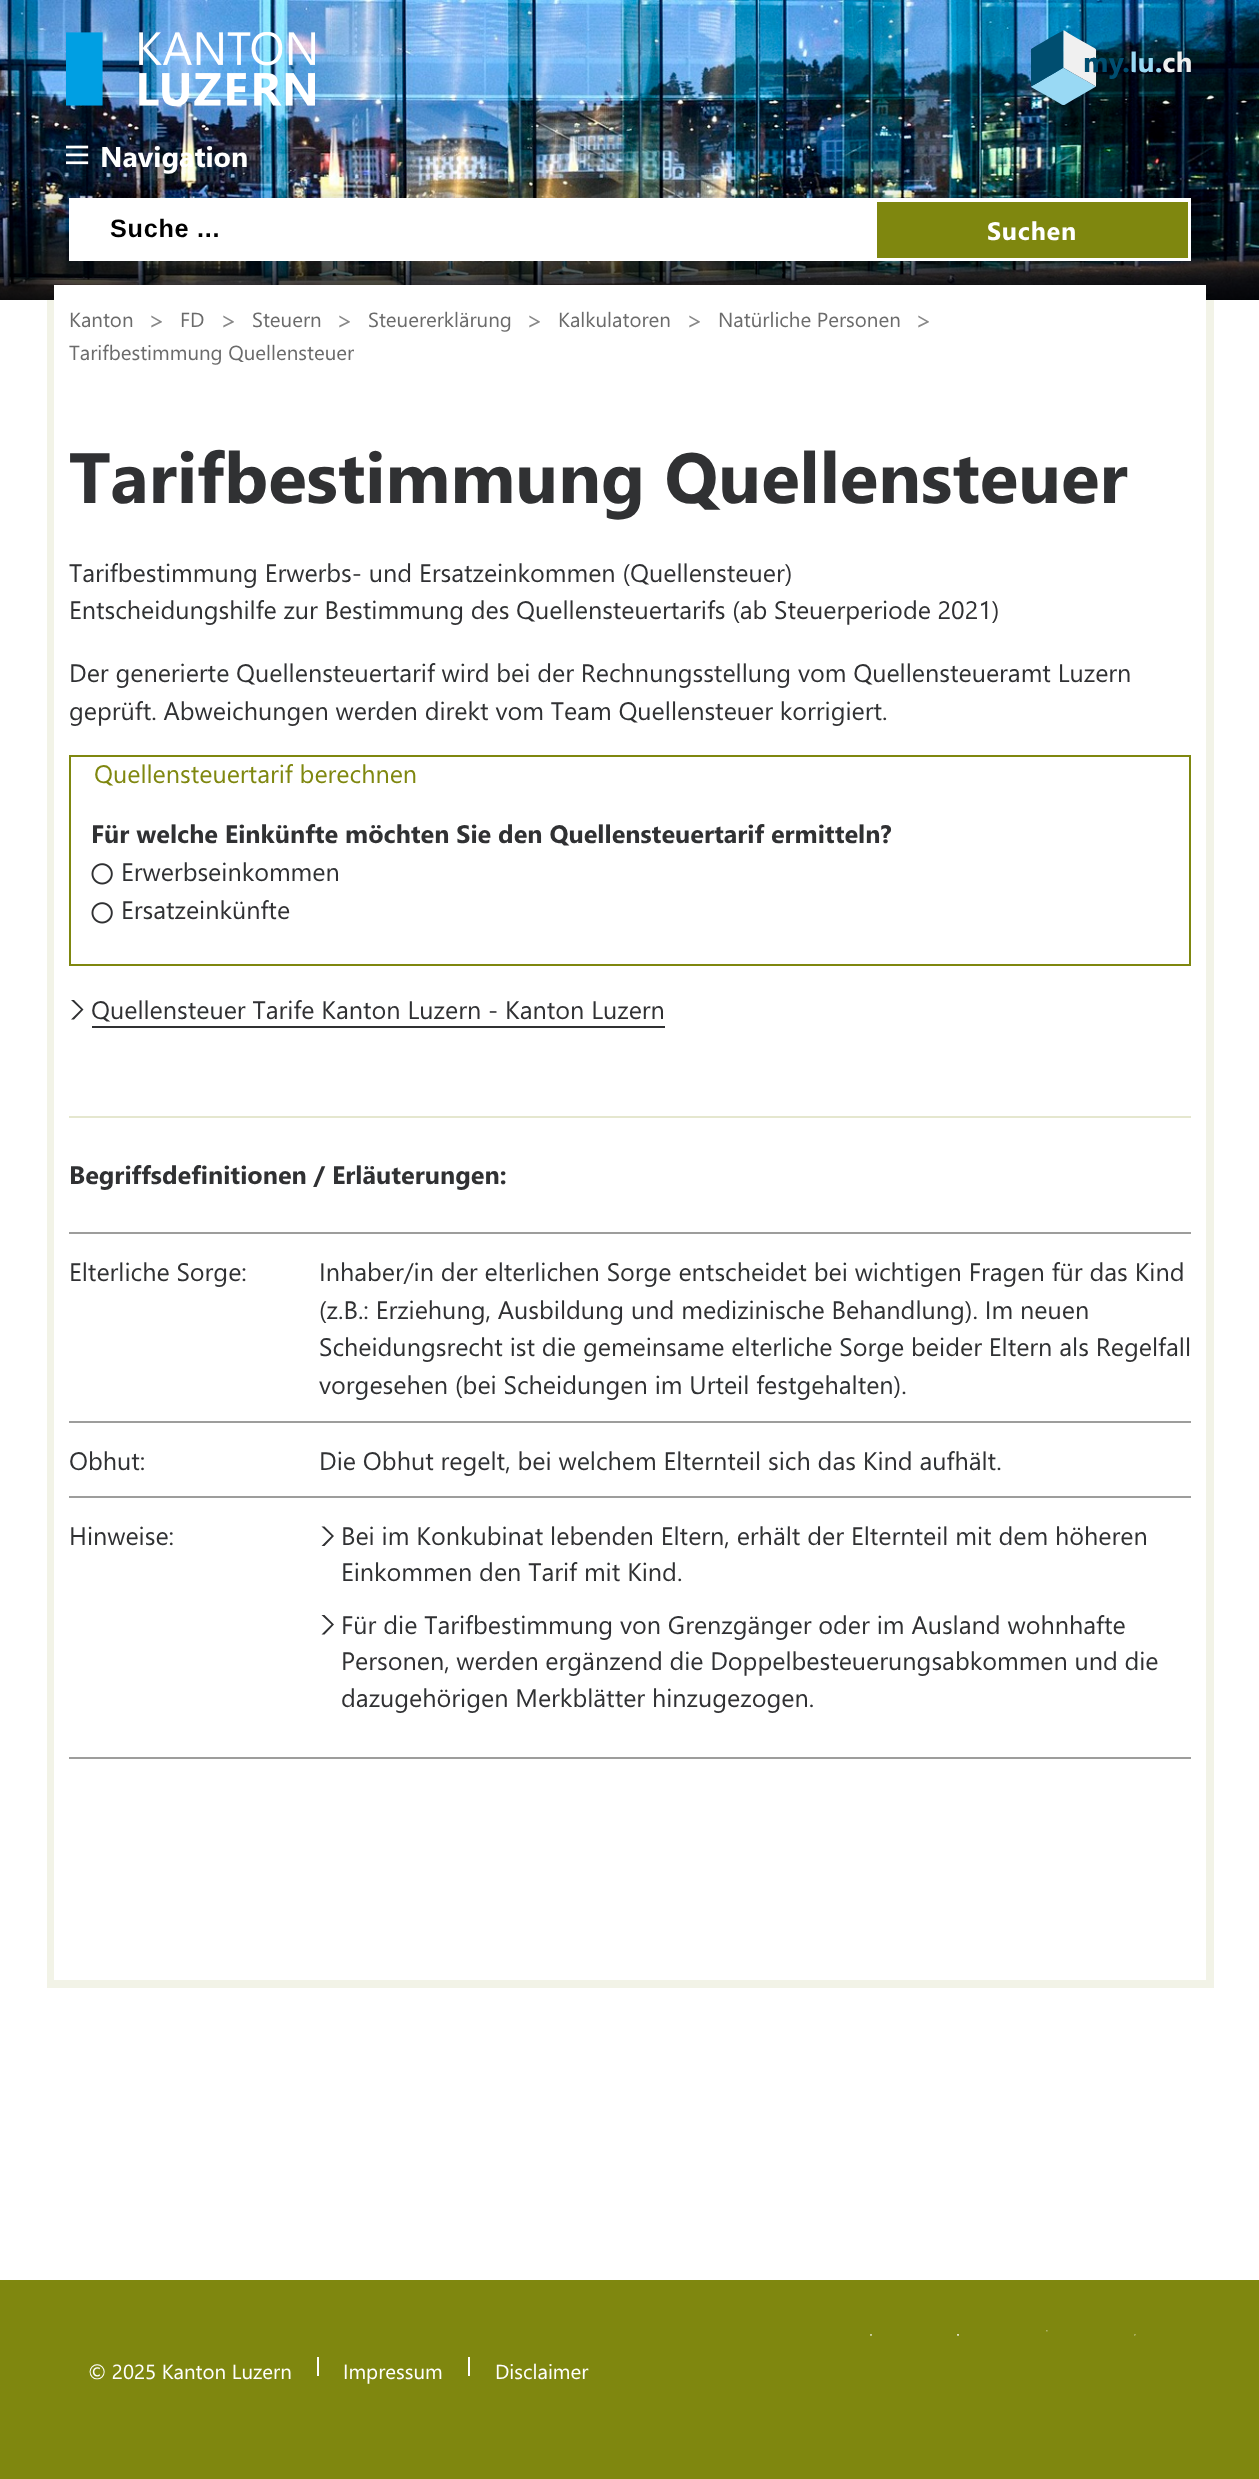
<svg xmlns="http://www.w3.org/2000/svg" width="1259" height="2479">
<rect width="100%" height="100%" fill="#fff"/>
<image x="0" y="0" width="1259" height="300" href="media/1.png"/>
<image x="66" y="32" width="249" height="75" href="media/2.png"/>
<image x="1031" y="30" width="160" height="75" href="media/3.png"/>
<image x="66" y="145" width="23" height="20" href="media/4.png"/>
<text x="100" y="167" style="font-family:Segoe UI;font-size:28.5px;font-weight:bold;fill:#fff">Navigation</text>
<rect x="69" y="198" width="1122" height="63" fill="#fff"/>
<text x="110" y="237" style="font-family:Liberation Sans;font-size:25.2px;font-weight:bold;letter-spacing:0.75px;fill:#000">Suche ...</text>
<rect x="877" y="202" width="311" height="56" fill="#7f870f"/>
<text x="987" y="240" style="font-family:Segoe UI;font-size:25.2px;font-weight:bold;letter-spacing:0.75px;fill:#fff">Suchen</text>
<rect x="54" y="285" width="1152" height="15" fill="#fff"/>
<rect x="54" y="1980" width="1152" height="8" fill="#f2f3e7"/>
<rect x="47" y="300" width="7" height="1688" fill="#f2f3e7"/>
<text x="69" y="327" style="font-family:Segoe UI;font-size:20.5px;fill:#6b6b6b">Kanton</text>
<text x="148" y="329" style="font-family:Segoe UI;font-size:25.2px;fill:#898989">&gt;</text>
<text x="180" y="327" style="font-family:Segoe UI;font-size:20.5px;fill:#6b6b6b">FD</text>
<text x="220" y="329" style="font-family:Segoe UI;font-size:25.2px;fill:#898989">&gt;</text>
<text x="252" y="327" style="font-family:Segoe UI;font-size:20.5px;fill:#6b6b6b">Steuern</text>
<text x="336" y="329" style="font-family:Segoe UI;font-size:25.2px;fill:#898989">&gt;</text>
<text x="368" y="327" style="font-family:Segoe UI;font-size:20.5px;fill:#6b6b6b">Steuererklärung</text>
<text x="526" y="329" style="font-family:Segoe UI;font-size:25.2px;fill:#898989">&gt;</text>
<text x="558" y="327" style="font-family:Segoe UI;font-size:20.5px;fill:#6b6b6b">Kalkulatoren</text>
<text x="686" y="329" style="font-family:Segoe UI;font-size:25.2px;fill:#898989">&gt;</text>
<text x="718" y="327" style="font-family:Segoe UI;font-size:20.5px;fill:#6b6b6b">Natürliche Personen</text>
<text x="915" y="329" style="font-family:Segoe UI;font-size:25.2px;fill:#898989">&gt;</text>
<text x="69" y="360" style="font-family:Segoe UI;font-size:20.5px;fill:#6b6b6b">Tarifbestimmung Quellensteuer</text>
<rect x="1206" y="300" width="8" height="1688" fill="#f2f3e7"/>
<text x="69" y="503" style="font-family:Segoe UI;font-size:70.9px;font-weight:bold;fill:#303133">Tarifbestimmung Quellensteuer</text>
<text x="69" y="582" style="font-family:Segoe UI;font-size:25.2px;fill:#303133">Tarifbestimmung Erwerbs- und Ersatzeinkommen (Quellensteuer)</text>
<text x="69" y="619" word-spacing="-0.25" style="font-family:Segoe UI;font-size:25.2px;fill:#303133">Entscheidungshilfe zur Bestimmung des Quellensteuertarifs (ab Steuerperiode 2021)</text>
<text x="69" y="682" word-spacing="-0.1" style="font-family:Segoe UI;font-size:25.2px;fill:#303133">Der generierte Quellensteuertarif wird bei der Rechnungsstellung vom Quellensteueramt Luzern</text>
<text x="69" y="720" word-spacing="-0.1" style="font-family:Segoe UI;font-size:25.2px;fill:#303133">geprüft. Abweichungen werden direkt vom Team Quellensteuer korrigiert.</text>
<rect x="70" y="756" width="1120" height="209" fill="none" stroke="#7f870f" stroke-width="2"/>
<text x="94" y="783" style="font-family:Segoe UI;font-size:25.2px;fill:#7f870f">Quellensteuertarif berechnen</text>
<text x="91" y="843" word-spacing="-0.1" style="font-family:Segoe UI;font-size:25.2px;font-weight:bold;fill:#303133">Für welche Einkünfte möchten Sie den Quellensteuertarif ermitteln?</text>
<image x="91" y="863" width="22" height="22" href="media/5.png"/>
<text x="121" y="881" style="font-family:Segoe UI;font-size:25.2px;fill:#303133">Erwerbseinkommen</text>
<image x="91" y="902" width="22" height="22" href="media/5.png"/>
<text x="121" y="919" style="font-family:Segoe UI;font-size:25.2px;fill:#303133">Ersatzeinkünfte</text>
<path d="M81 1009.5l-10 10h3l9.5-10l-9.5-9.5h-3z" fill="#303133"/>
<text x="91" y="1019" style="font-family:Segoe UI;font-size:25.2px;fill:#303133">Quellensteuer Tarife Kanton Luzern - Kanton Luzern</text>
<rect x="92" y="1026" width="573" height="2" fill="#303133"/>
<rect x="69" y="1116" width="1122" height="2" fill="#e5e7cf"/>
<text x="69" y="1184" style="font-family:Segoe UI;font-size:25.2px;font-weight:bold;fill:#303133">Begriffsdefinitionen / Erläuterungen:</text>
<rect x="69" y="1757" width="1122" height="2" fill="#9d9d9c"/>
<text x="69" y="1281" style="font-family:Segoe UI;font-size:25.2px;fill:#303133">Elterliche Sorge:</text>
<rect x="69" y="1232" width="1122" height="2" fill="#9d9d9c"/>
<text x="319" y="1281" style="font-family:Segoe UI;font-size:25.2px;fill:#303133">Inhaber/in der elterlichen Sorge entscheidet bei wichtigen Fragen für das Kind</text>
<text x="319" y="1319" style="font-family:Segoe UI;font-size:25.2px;fill:#303133">(z.B.: Erziehung, Ausbildung und medizinische Behandlung). Im neuen</text>
<text x="319" y="1356" style="font-family:Segoe UI;font-size:25.2px;fill:#303133">Scheidungsrecht ist die gemeinsame elterliche Sorge beider Eltern als Regelfall</text>
<text x="319" y="1394" style="font-family:Segoe UI;font-size:25.2px;fill:#303133">vorgesehen (bei Scheidungen im Urteil festgehalten).</text>
<text x="69" y="1470" style="font-family:Segoe UI;font-size:25.2px;fill:#303133">Obhut:</text>
<rect x="69" y="1421" width="1122" height="2" fill="#9d9d9c"/>
<text x="319" y="1470" style="font-family:Segoe UI;font-size:25.2px;fill:#303133">Die Obhut regelt, bei welchem Elternteil sich das Kind aufhält.</text>
<text x="69" y="1545" style="font-family:Segoe UI;font-size:25.2px;fill:#303133">Hinweise:</text>
<rect x="69" y="1496" width="1122" height="2" fill="#9d9d9c"/>
<path d="M331.5 1536l-10 10h3l9.5-10l-9.5-9.5h-3z" fill="#303133"/>
<text x="341" y="1545" style="font-family:Segoe UI;font-size:25.2px;fill:#303133">Bei im Konkubinat lebenden Eltern, erhält der Elternteil mit dem höheren</text>
<text x="341" y="1581" style="font-family:Segoe UI;font-size:25.2px;fill:#303133">Einkommen den Tarif mit Kind.</text>
<path d="M331.5 1624.5l-10 10h3l9.5-10l-9.5-9.5h-3z" fill="#303133"/>
<text x="341" y="1634" style="font-family:Segoe UI;font-size:25.2px;fill:#303133">Für die Tarifbestimmung von Grenzgänger oder im Ausland wohnhafte</text>
<text x="341" y="1670" word-spacing="-0.25" style="font-family:Segoe UI;font-size:25.2px;fill:#303133">Personen, werden ergänzend die Doppelbesteuerungsabkommen und die</text>
<text x="341" y="1707" style="font-family:Segoe UI;font-size:25.2px;fill:#303133">dazugehörigen Merkblätter hinzugezogen.</text>
<rect y="2280" width="1259" height="199" fill="#7f870f"/>
<image x="1046" y="2330" width="2" height="2" href="media/6.png"/>
<image x="870" y="2334" width="2" height="2" href="media/7.png"/>
<image x="957" y="2334" width="2" height="2" href="media/8.png"/>
<image x="1134" y="2334" width="2" height="2" href="media/9.png"/>
<text x="88" y="2379" style="font-family:Segoe UI;font-size:20.5px;fill:#fff">© 2025 Kanton Luzern</text>
<rect x="317" y="2357" width="2" height="19" fill="#fff"/>
<text x="343" y="2379" style="font-family:Segoe UI;font-size:20.5px;fill:#fff">Impressum</text>
<rect x="468" y="2357" width="2" height="19" fill="#fff"/>
<text x="495" y="2379" style="font-family:Segoe UI;font-size:20.5px;fill:#fff">Disclaimer</text>
</svg>
